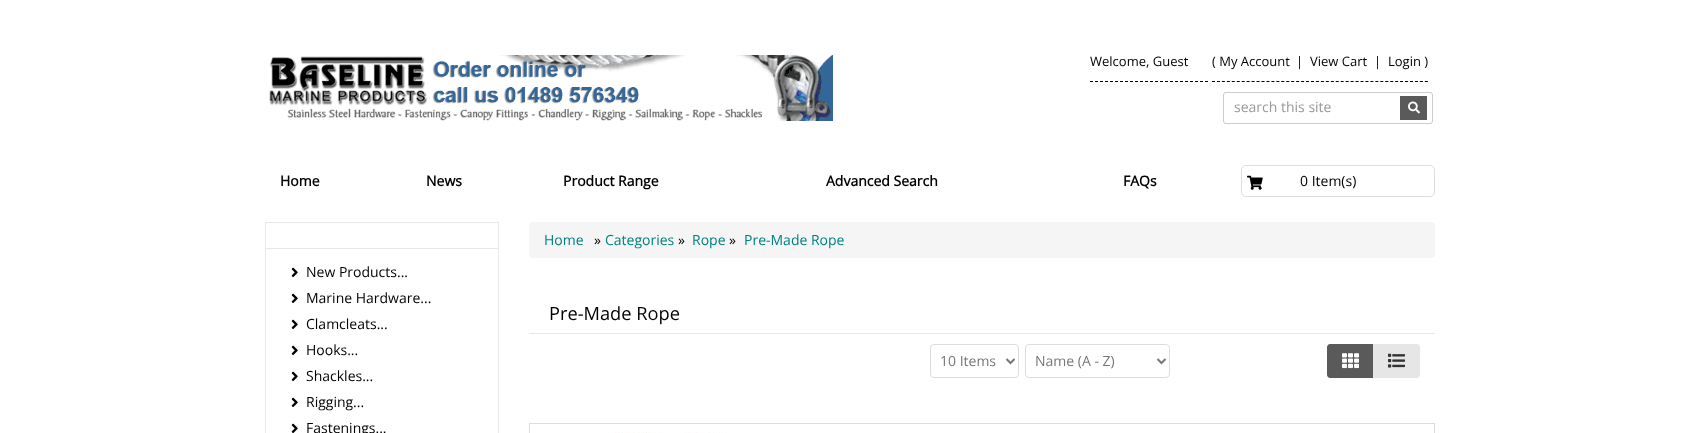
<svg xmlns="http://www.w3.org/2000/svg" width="1700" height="433">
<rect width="100%" height="100%" fill="#fff"/>
<image x="269" y="55" width="564" height="66" href="media/1.png"/>
<path d="M1090 81.5h118" fill="none" stroke="#000" stroke-dasharray="3 2"/>
<text x="1090" y="66" style="font-family:Open Sans;font-size:13px;fill:#000">Welcome, Guest</text>
<path d="M1212 81.5h216" fill="none" stroke="#000" stroke-dasharray="3 1.95"/>
<text x="1212" y="66" style="font-family:Open Sans;font-size:13px;fill:#000">( My Account</text>
<text x="1296" y="66" style="font-family:Open Sans;font-size:13px;fill:#000">|</text>
<text x="1310" y="66" style="font-family:Open Sans;font-size:13px;fill:#000">View Cart</text>
<text x="1374" y="66" style="font-family:Open Sans;font-size:13px;fill:#000">|</text>
<text x="1388" y="66" style="font-family:Open Sans;font-size:13px;fill:#000">Login )</text>
<rect x="1223.5" y="92.5" width="209" height="31" rx="2.5" fill="none" stroke="#ccc"/>
<text x="1234" y="112" style="font-family:Open Sans;font-size:14px;fill:#999">search this site</text>
<rect x="1400" y="96" width="27" height="24" fill="#5a5a5a"/>
<image x="1408" y="101" width="12" height="13" href="media/2.png"/>
<text x="280" y="186" style="font-family:Open Sans;font-size:14px;font-weight:bold;fill:#000">Home</text>
<text x="426" y="186" style="font-family:Open Sans;font-size:14px;font-weight:bold;fill:#000">News</text>
<text x="563" y="186" style="font-family:Open Sans;font-size:14px;font-weight:bold;fill:#000">Product Range</text>
<text x="826" y="186" style="font-family:Open Sans;font-size:14px;font-weight:bold;fill:#000">Advanced Search</text>
<text x="1123" y="186" style="font-family:Open Sans;font-size:14px;font-weight:bold;fill:#000">FAQs</text>
<rect x="1241.5" y="165.5" width="193" height="31" rx="4.5" fill="none" stroke="#ddd"/>
<rect x="1242" y="166" width="192" height="30" rx="5" fill="#fff"/>
<image x="1247" y="175" width="16" height="15" href="media/3.png"/>
<text x="1300" y="186" style="font-family:Open Sans;font-size:14px;fill:#000">0 Item(s)</text>
<rect x="265.5" y="222.5" width="233" height="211" fill="none" stroke="#e7e7e7"/>
<rect x="266" y="248" width="232" height="1" fill="#e7e7e7"/>
<image x="291" y="267" width="7" height="10" href="media/4.png"/>
<text x="306" y="277" style="font-family:Open Sans;font-size:14px;fill:#000">New Products...</text>
<image x="291" y="293" width="7" height="10" href="media/4.png"/>
<text x="306" y="303" style="font-family:Open Sans;font-size:14px;fill:#000">Marine Hardware...</text>
<image x="291" y="319" width="7" height="10" href="media/4.png"/>
<text x="306" y="329" style="font-family:Open Sans;font-size:14px;fill:#000">Clamcleats...</text>
<image x="291" y="345" width="7" height="10" href="media/4.png"/>
<text x="306" y="355" style="font-family:Open Sans;font-size:14px;fill:#000">Hooks...</text>
<image x="291" y="371" width="7" height="10" href="media/4.png"/>
<text x="306" y="381" style="font-family:Open Sans;font-size:14px;fill:#000">Shackles...</text>
<image x="291" y="397" width="7" height="10" href="media/4.png"/>
<text x="306" y="407" style="font-family:Open Sans;font-size:14px;fill:#000">Rigging...</text>
<image x="291" y="423" width="7" height="10" href="media/4.png"/>
<text x="306" y="433" style="font-family:Open Sans;font-size:14px;fill:#000">Fastenings...</text>
<rect x="529" y="222" width="906" height="36" rx="4" fill="#f5f5f5"/>
<text x="544" y="245" style="font-family:Open Sans;font-size:14px;fill:#008080">Home</text>
<text x="594" y="245" style="font-family:Open Sans;font-size:14px;fill:#000">»</text>
<text x="605" y="245" style="font-family:Open Sans;font-size:14px;fill:#008080">Categories</text>
<text x="678" y="245" style="font-family:Open Sans;font-size:14px;fill:#000">»</text>
<text x="692" y="245" style="font-family:Open Sans;font-size:14px;fill:#008080">Rope</text>
<text x="729" y="245" style="font-family:Open Sans;font-size:14px;fill:#000">»</text>
<text x="744" y="245" style="font-family:Open Sans;font-size:14px;fill:#008080">Pre-Made Rope</text>
<rect x="529" y="333" width="906" height="1" fill="#e7e7e7"/>
<text x="549" y="320" style="font-family:Open Sans;font-size:18.25px;fill:#000">Pre-Made Rope</text>
<rect x="930.5" y="344.5" width="88" height="33" rx="3.5" fill="none" stroke="#ddd"/>
<path d="M1006.5 359l4 4l4-4" fill="none" stroke="#777" stroke-width="2"/>
<text x="940" y="366" style="font-family:Open Sans;font-size:14px;fill:#777">10 Items</text>
<rect x="1025.5" y="344.5" width="144" height="33" rx="3.5" fill="none" stroke="#ddd"/>
<path d="M1157.5 359l4 4l4-4" fill="none" stroke="#777" stroke-width="2"/>
<text x="1035" y="366" style="font-family:Open Sans;font-size:14px;fill:#777">Name (A - Z)</text>
<path d="M1330 344h44v34h-44c-1.5 0-3-1.5-3-3v-28c0-1.5 1.5-3 3-3z" fill="#5a5a5a"/>
<image x="1342" y="353" width="17" height="16" href="media/5.png"/>
<path d="M1373 344h44c1.5 0 3 1.5 3 3v28c0 1.5-1.5 3-3 3h-44z" fill="#e6e6e6"/>
<image x="1388" y="353" width="17" height="15" href="media/6.png"/>
<rect x="529.5" y="423.5" width="905" height="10" fill="none" stroke="#ddd"/>
<image x="615" y="432" width="112" height="1" href="media/7.png"/>
</svg>
